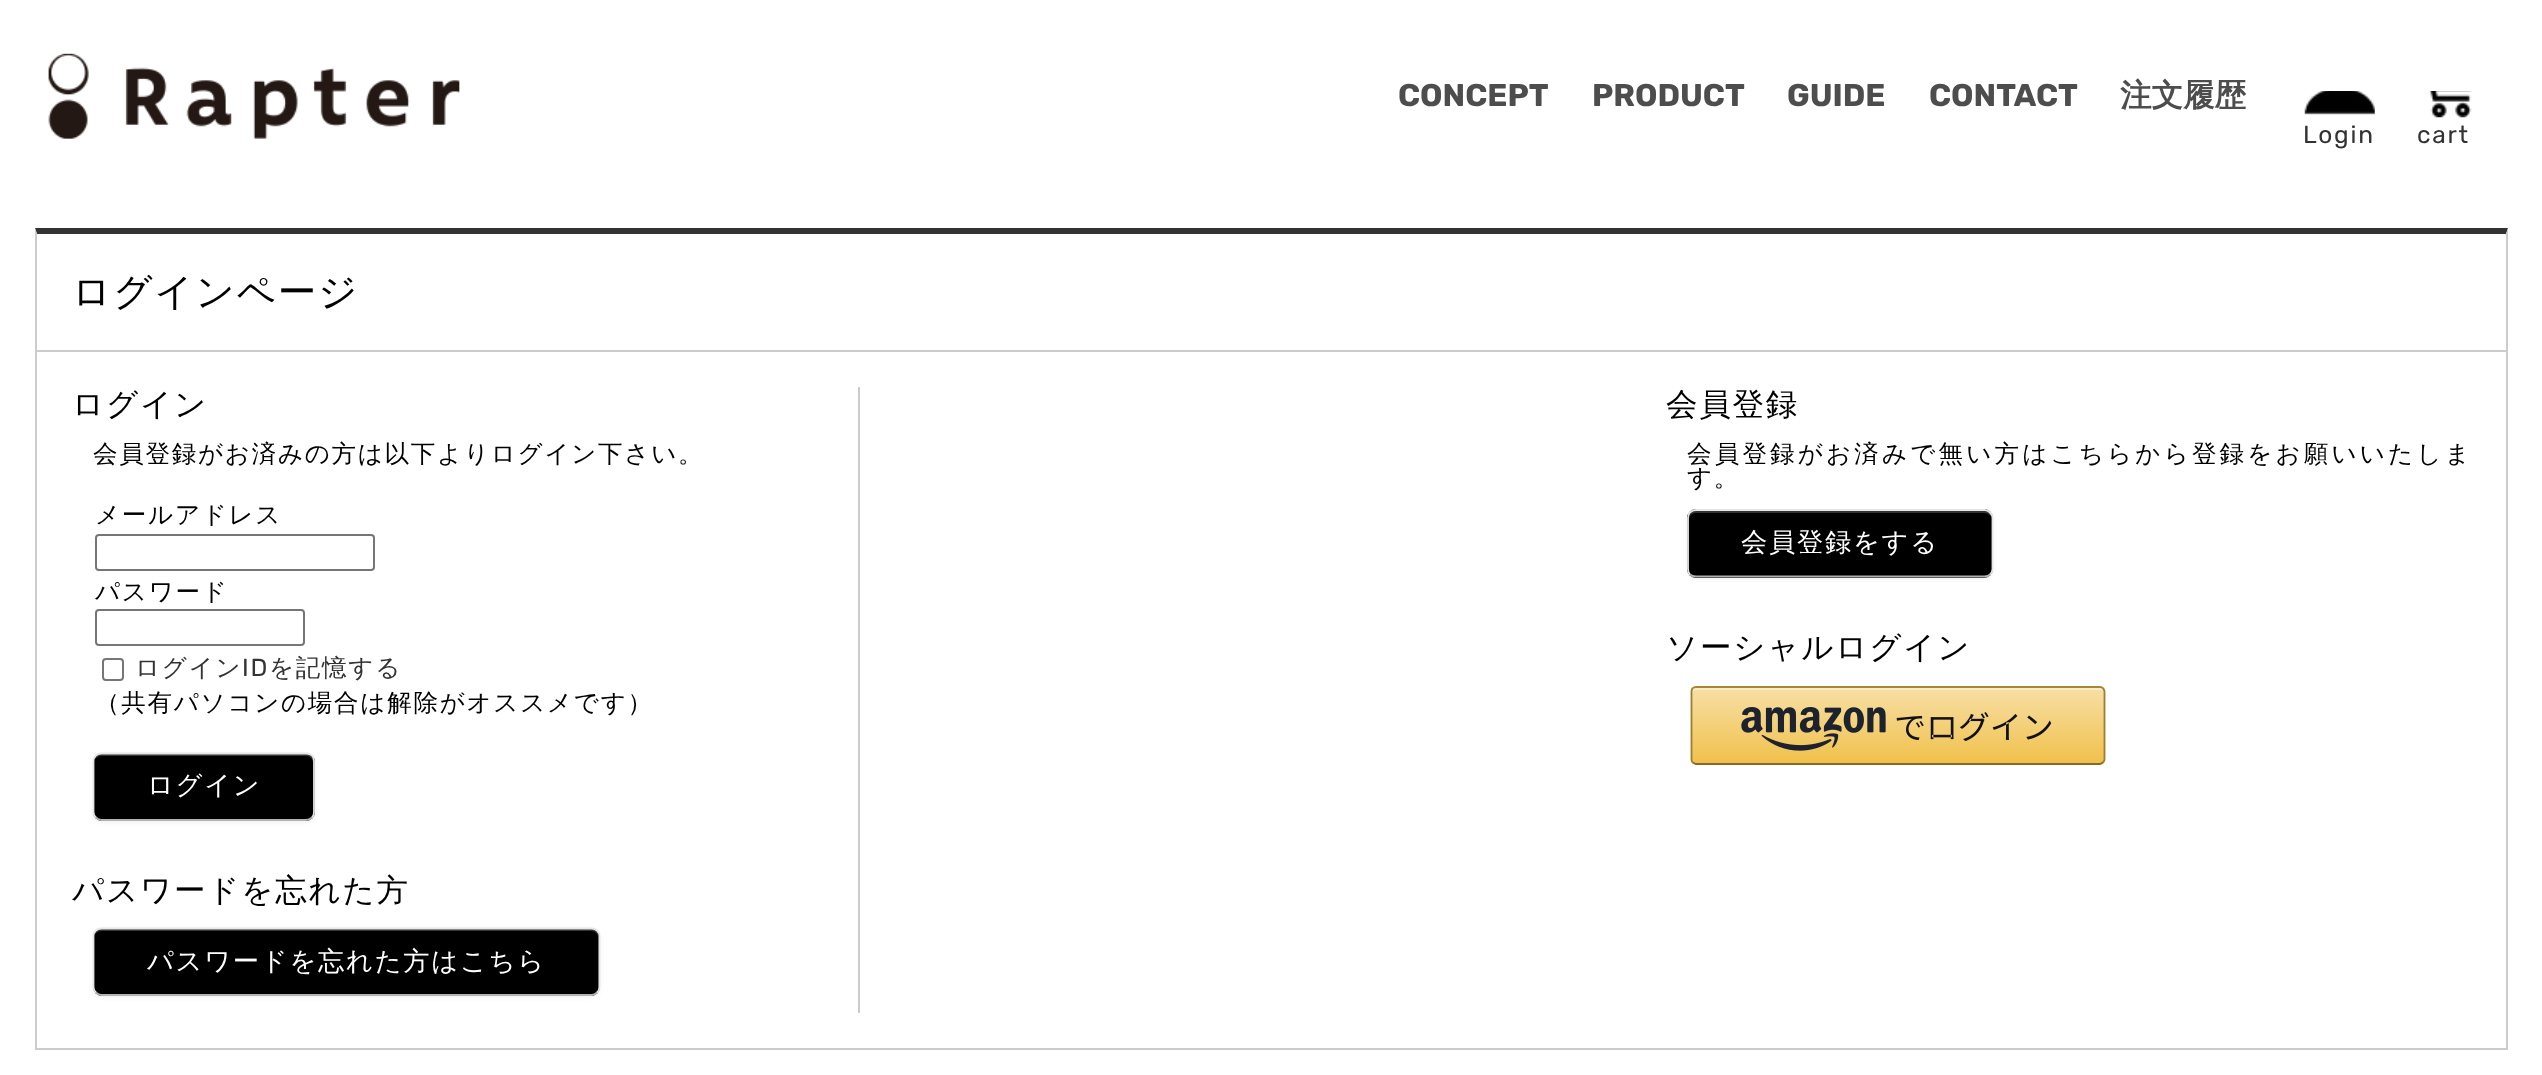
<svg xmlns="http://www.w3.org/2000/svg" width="2542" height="1075">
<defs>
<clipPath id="clip1"><rect x="1691" y="686" width="414" height="79" rx="5"/></clipPath>
<linearGradient id="g1" gradientUnits="userSpaceOnUse" x1="1898" y1="613" x2="1898" y2="688"><stop offset="0" stop-color="#f7dfa5"/><stop offset="1" stop-color="#f0c14b"/></linearGradient>
<linearGradient id="g2" gradientUnits="userSpaceOnUse" x1="1898" y1="688" x2="1898" y2="763"><stop offset="0" stop-color="#f7dfa5"/><stop offset="1" stop-color="#f0c14b"/></linearGradient>
<linearGradient id="g3" gradientUnits="userSpaceOnUse" x1="1898" y1="763" x2="1898" y2="838"><stop offset="0" stop-color="#f7dfa5"/><stop offset="1" stop-color="#f0c14b"/></linearGradient>
</defs>
<rect width="100%" height="100%" fill="#fff"/>
<image x="48" y="53" width="412" height="86" href="media/1.png"/>
<text x="1398" y="106" style="font-family:Rubik;font-size:31.5px;font-weight:bold;fill:#4d4d4d">CONCEPT</text>
<text x="1592" y="106" style="font-family:Rubik;font-size:31.5px;font-weight:bold;fill:#4d4d4d">PRODUCT</text>
<text x="1787" y="106" style="font-family:Rubik;font-size:31.5px;font-weight:bold;fill:#4d4d4d">GUIDE</text>
<text x="1929" y="106" style="font-family:Rubik;font-size:31.5px;font-weight:bold;fill:#4d4d4d">CONTACT</text>
<text x="2120" y="106" style="font-family:WenQuanYi Zen Hei;font-size:31.5px;font-weight:bold;fill:#4d4d4d">注文履歴</text>
<image x="2304" y="91" width="71" height="24" href="media/2.png"/>
<text x="2303" y="143" style="font-family:Rubik;font-size:24.5px;letter-spacing:1.75px;fill:#333">Login</text>
<image x="2429" y="91" width="43" height="27" href="media/3.png"/>
<text x="2417" y="143" style="font-family:Rubik;font-size:24.5px;letter-spacing:1.75px;fill:#333">cart</text>
<path d="M35 228h2473l-2 6h-2469z" fill="#333"/>
<path d="M2508 228v122h-2v-116z" fill="#ccc"/>
<path d="M35 350v-122l2 6v116z" fill="#ccc"/>
<text x="72" y="305" style="font-family:WenQuanYi Zen Hei;font-size:38.5px;font-weight:500;letter-spacing:1.75px;fill:#000">ログインページ</text>
<rect x="36" y="351" width="2471" height="698" fill="none" stroke="#ccc" stroke-width="2"/>
<rect x="858" y="387" width="2" height="626" fill="#ccc"/>
<text x="72" y="415" style="font-family:WenQuanYi Zen Hei;font-size:31.5px;font-weight:500;letter-spacing:1.75px;fill:#000">ログイン</text>
<text x="93" y="462" style="font-family:WenQuanYi Zen Hei;font-size:24.5px;font-weight:500;letter-spacing:1.75px;fill:#000">会員登録がお済みの方は以下よりログイン下さい。</text>
<text x="95" y="523" style="font-family:WenQuanYi Zen Hei;font-size:24.5px;font-weight:500;letter-spacing:1.75px;fill:#000">メールアドレス</text>
<rect x="96" y="535" width="278" height="35" rx="3" fill="none" stroke="#767676" stroke-width="2"/>
<text x="95" y="600" style="font-family:WenQuanYi Zen Hei;font-size:24.5px;font-weight:500;letter-spacing:1.75px;fill:#000">パスワード</text>
<rect x="96" y="610" width="208" height="35" rx="3" fill="none" stroke="#767676" stroke-width="2"/>
<rect x="103" y="659" width="20" height="21" rx="3" fill="none" stroke="#767676" stroke-width="2"/>
<text x="135" y="676" style="font-family:WenQuanYi Zen Hei;font-size:24.5px;font-weight:500;letter-spacing:1.75px;fill:#333">ログイン</text>
<text x="242" y="676" style="font-family:Rubik;font-size:24.5px;letter-spacing:1.75px;fill:#333">ID</text>
<text x="269" y="676" style="font-family:WenQuanYi Zen Hei;font-size:24.5px;font-weight:500;letter-spacing:1.75px;fill:#333">を記憶する</text>
<text x="95" y="711" style="font-family:WenQuanYi Zen Hei;font-size:24.5px;font-weight:500;letter-spacing:1.75px;fill:#000">（共有パソコンの場合は解除がオススメです）</text>
<rect x="93" y="754" width="222" height="69" rx="9" fill="#0000000d" filter="blur(2px)"/>
<rect x="93" y="753" width="222" height="68" rx="9" fill="#000"/>
<path d="M102 756h204c4 0 7 3 7 7v-2c0-4-3-7-7-7h-204c-3 0-6 2-7 5c2-2 4-3 7-3z" fill="#333"/>
<path d="M312 817.5c-1.5 1.5-3.5 2.5-6 2.5h-204.5c-2 0-4-1-5.5-2.5" fill="none" stroke="#b3b3b3" stroke-width="1.8"/>
<path d="M96 817.5c-1.5-1.5-2.5-3.5-2.5-5.5v-51c0-2 1-4 2.5-5.5c1.5-1.5 3.5-2 5.5-2h204.5c2.5 0 4.5 .5 6 2c1.5 1.5 2 3.5 2 5.5v51c0 2-.5 4-2 5.5" fill="none" stroke="#e6e6e6" stroke-width="1.8"/>
<text x="147" y="794" style="font-family:WenQuanYi Zen Hei;font-size:26.25px;font-weight:500;letter-spacing:1.75px;fill:#fff">ログイン</text>
<text x="72" y="901" style="font-family:WenQuanYi Zen Hei;font-size:31.5px;font-weight:500;letter-spacing:1.75px;fill:#000">パスワードを忘れた方</text>
<rect x="93" y="929" width="507" height="69" rx="9" fill="#0000000d" filter="blur(2px)"/>
<rect x="93" y="928" width="507" height="68" rx="9" fill="#000"/>
<path d="M102 931h490c3 0 6 3 6 7v53c1-1 1-3 1-4v-51c0-4-3-7-7-7h-490c-3 0-6 2-7 5c2-2 4-3 7-3z" fill="#333"/>
<path d="M597 992.5c-1.5 1.5-3.5 2.5-5.5 2.5h-490c-2 0-4-1-5.5-2.5" fill="none" stroke="#b3b3b3" stroke-width="1.8"/>
<path d="M96 992.5c-1.5-1.5-2.5-3.5-2.5-5.5v-51c0-2 1-4 2.5-5.5c1.5-1.5 3.5-2 5.5-2h490c2 0 4 .5 5.5 2c1.5 1.5 2.5 3.5 2.5 5.5v51c0 2-1 4-2.5 5.5" fill="none" stroke="#e6e6e6" stroke-width="1.8"/>
<text x="147" y="970" style="font-family:WenQuanYi Zen Hei;font-size:26.25px;font-weight:500;letter-spacing:1.75px;fill:#fff">パスワードを忘れた方はこちら</text>
<text x="1666" y="415" style="font-family:WenQuanYi Zen Hei;font-size:31.5px;font-weight:500;letter-spacing:1.75px;fill:#000">会員登録</text>
<text x="1687" y="462" style="font-family:WenQuanYi Zen Hei;font-size:24.5px;font-weight:500;letter-spacing:3.2px;fill:#000">会員登録がお済みで無い方はこちらから登録をお願いいたしま</text>
<text x="1687" y="486" style="font-family:WenQuanYi Zen Hei;font-size:24.5px;font-weight:500;letter-spacing:1.75px;fill:#000">す。</text>
<rect x="1687" y="511" width="306" height="68" rx="9" fill="#0000000d" filter="blur(2px)"/>
<rect x="1687" y="509" width="306" height="69" rx="9" fill="#000"/>
<path d="M1696 513h288c4 0 8 3 8 7c0-4-2-9-7-9h-289c-5 0-7 5-7 9c0-4 3-7 7-7z" fill="#333"/>
<path d="M1990 574.5c-1.5 1.5-3.5 2-5.5 2h-288.5c-2.5 0-4.5-.5-6-2" fill="none" stroke="#b3b3b3" stroke-width="1.8"/>
<path d="M1690 574.5c-1.5-1.5-2-3.5-2-5.5v-51c0-2 .5-4 2-5.5c1.5-1.5 3.5-2.5 6-2.5h288.5c2 0 4 1 5.5 2.5c1.5 1.5 2.5 3.5 2.5 5.5v51c0 2-1 4-2.5 5.5" fill="none" stroke="#e6e6e6" stroke-width="1.8"/>
<text x="1741" y="551" style="font-family:WenQuanYi Zen Hei;font-size:26.25px;font-weight:500;letter-spacing:1.75px;fill:#fff">会員登録をする</text>
<text x="1666" y="658" style="font-family:WenQuanYi Zen Hei;font-size:31.5px;font-weight:500;letter-spacing:1.75px;fill:#000">ソーシャルログイン</text>
<g clip-path="url(#clip1)">
<rect x="1691" y="686" width="414" height="2" fill="url(#g1)"/>
<rect x="1691" y="688" width="414" height="75" fill="url(#g2)"/>
<rect x="1691" y="763" width="414" height="2" fill="url(#g3)"/>
</g>
<path d="M1696 690h404c2 0 4 1 4 3v-1c0-2-2-4-4-4h-404c-2 0-4 2-4 4v1c0-2 2-3 4-3z" fill="#faebc8"/>
<path d="M1692.5 688l3.5-1h404l3 1" fill="none" stroke="#a88734" stroke-width="1.8"/>
<path d="M2103 688l1.5 3v69l-1.5 2.5" fill="none" stroke="#9c7e31" stroke-width="1.8"/>
<path d="M2103 762.5l-3 1.5h-404l-3.5-1.5" fill="none" stroke="#846a29" stroke-width="1.8"/>
<path d="M1692.5 762.5l-1-2.5v-69l1-3" fill="none" stroke="#9c7e31" stroke-width="1.8"/>
<image x="1741" y="707" width="311" height="44" href="media/4.png"/>
</svg>
